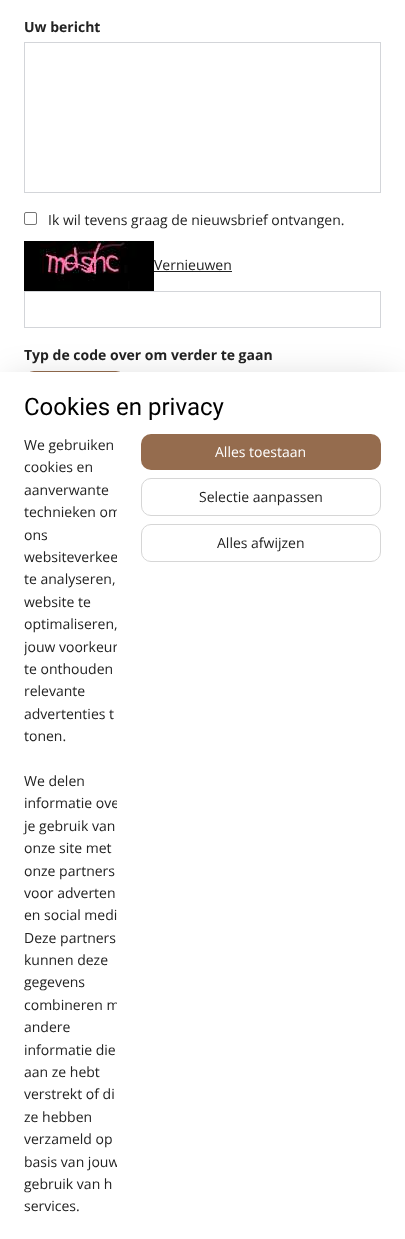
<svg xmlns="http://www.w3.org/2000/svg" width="405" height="1239">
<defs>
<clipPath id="clip1"><rect x="24" y="434" width="93" height="805"/></clipPath>
</defs>
<rect width="100%" height="100%" fill="#fff"/>
<text x="24" y="32" style="font-family:Open Sans;font-size:14px;font-weight:bold;fill:#222">Uw bericht</text>
<rect x="24.5" y="42.5" width="356" height="150" fill="none" stroke="#d3d5d9"/>
<rect x="24.5" y="212.5" width="12" height="12" rx="1.5" fill="none" stroke="#767676"/>
<text x="48" y="225" style="font-family:Open Sans;font-size:14px;fill:#222">Ik wil tevens graag de nieuwsbrief ontvangen.</text>
<image x="24" y="241" width="130" height="50" href="media/1.png"/>
<text x="154" y="270" style="font-family:Open Sans;font-size:14px;fill:#222">Vernieuwen</text>
<rect x="154" y="271" width="78" height="1" fill="#222"/>
<rect x="24.5" y="291.5" width="356" height="36" fill="none" stroke="#d3d5d9"/>
<text x="24" y="360" style="font-family:Open Sans;font-size:14px;font-weight:bold;fill:#222">Typ de code over om verder te gaan</text>
<rect x="24" y="371" width="102" height="36" rx="10" fill="#956c4e"/>
<rect x="10" y="382" width="385" height="847" fill="#00000033" filter="blur(18px)"/>
<rect y="372" width="405" height="867" fill="#fff"/>
<text x="24" y="415" style="font-family:Roboto;font-size:24px;fill:#000">Cookies en privacy</text>
<text x="24" y="450" style="font-family:Open Sans;font-size:14px;fill:#222">We gebruiken</text>
<text x="24" y="472" style="font-family:Open Sans;font-size:14px;fill:#222">cookies en</text>
<text x="24" y="495" style="font-family:Open Sans;font-size:14px;fill:#222">aanverwante</text>
<g clip-path="url(#clip1)">
<text x="24" y="517" style="font-family:Open Sans;font-size:14px;fill:#222">technieken om</text>
</g>
<text x="24" y="540" style="font-family:Open Sans;font-size:14px;fill:#222">ons</text>
<g clip-path="url(#clip1)">
<text x="24" y="562" style="font-family:Open Sans;font-size:14px;fill:#222">websiteverkee</text>
</g>
<text x="24" y="584" style="font-family:Open Sans;font-size:14px;fill:#222">te analyseren,</text>
<text x="24" y="607" style="font-family:Open Sans;font-size:14px;fill:#222">website te</text>
<text x="24" y="629" style="font-family:Open Sans;font-size:14px;fill:#222">optimaliseren,</text>
<g clip-path="url(#clip1)">
<text x="24" y="652" style="font-family:Open Sans;font-size:14px;fill:#222">jouw voorkeur</text>
</g>
<text x="24" y="674" style="font-family:Open Sans;font-size:14px;fill:#222">te onthouden</text>
<text x="24" y="696" style="font-family:Open Sans;font-size:14px;fill:#222">relevante</text>
<text x="24" y="719" style="font-family:Open Sans;font-size:14px;fill:#222">advertenties t</text>
<text x="24" y="741" style="font-family:Open Sans;font-size:14px;fill:#222">tonen.</text>
<text x="24" y="786" style="font-family:Open Sans;font-size:14px;fill:#222">We delen</text>
<g clip-path="url(#clip1)">
<text x="24" y="808" style="font-family:Open Sans;font-size:14px;fill:#222">informatie ove</text>
</g>
<text x="24" y="831" style="font-family:Open Sans;font-size:14px;fill:#222">je gebruik van</text>
<text x="24" y="853" style="font-family:Open Sans;font-size:14px;fill:#222">onze site met</text>
<text x="24" y="876" style="font-family:Open Sans;font-size:14px;fill:#222">onze partners</text>
<text x="24" y="898" style="font-family:Open Sans;font-size:14px;fill:#222">voor adverten</text>
<text x="24" y="920" style="font-family:Open Sans;font-size:14px;fill:#222">en social medi</text>
<text x="24" y="943" style="font-family:Open Sans;font-size:14px;fill:#222">Deze partners</text>
<text x="24" y="965" style="font-family:Open Sans;font-size:14px;fill:#222">kunnen deze</text>
<text x="24" y="987" style="font-family:Open Sans;font-size:14px;fill:#222">gegevens</text>
<g clip-path="url(#clip1)">
<text x="24" y="1010" style="font-family:Open Sans;font-size:14px;fill:#222">combineren m</text>
</g>
<text x="24" y="1032" style="font-family:Open Sans;font-size:14px;fill:#222">andere</text>
<text x="24" y="1055" style="font-family:Open Sans;font-size:14px;fill:#222">informatie die</text>
<text x="24" y="1077" style="font-family:Open Sans;font-size:14px;fill:#222">aan ze hebt</text>
<text x="24" y="1099" style="font-family:Open Sans;font-size:14px;fill:#222">verstrekt of di</text>
<text x="24" y="1122" style="font-family:Open Sans;font-size:14px;fill:#222">ze hebben</text>
<text x="24" y="1144" style="font-family:Open Sans;font-size:14px;fill:#222">verzameld op</text>
<g clip-path="url(#clip1)">
<text x="24" y="1167" style="font-family:Open Sans;font-size:14px;fill:#222">basis van jouw</text>
</g>
<text x="24" y="1189" style="font-family:Open Sans;font-size:14px;fill:#222">gebruik van h</text>
<text x="24" y="1211" style="font-family:Open Sans;font-size:14px;fill:#222">services.</text>
<rect x="141" y="434" width="240" height="36" rx="10" fill="#956c4e"/>
<text x="215" y="457" style="font-family:Open Sans;font-size:14px;fill:#fff">Alles toestaan</text>
<rect x="141.5" y="478.5" width="239" height="37" rx="9.5" fill="none" stroke="#d6d6d6"/>
<text x="199" y="502" style="font-family:Open Sans;font-size:14px;fill:#222">Selectie aanpassen</text>
<rect x="141.5" y="524.5" width="239" height="37" rx="9.5" fill="none" stroke="#d6d6d6"/>
<text x="217" y="548" style="font-family:Open Sans;font-size:14px;fill:#222">Alles afwijzen</text>
</svg>
